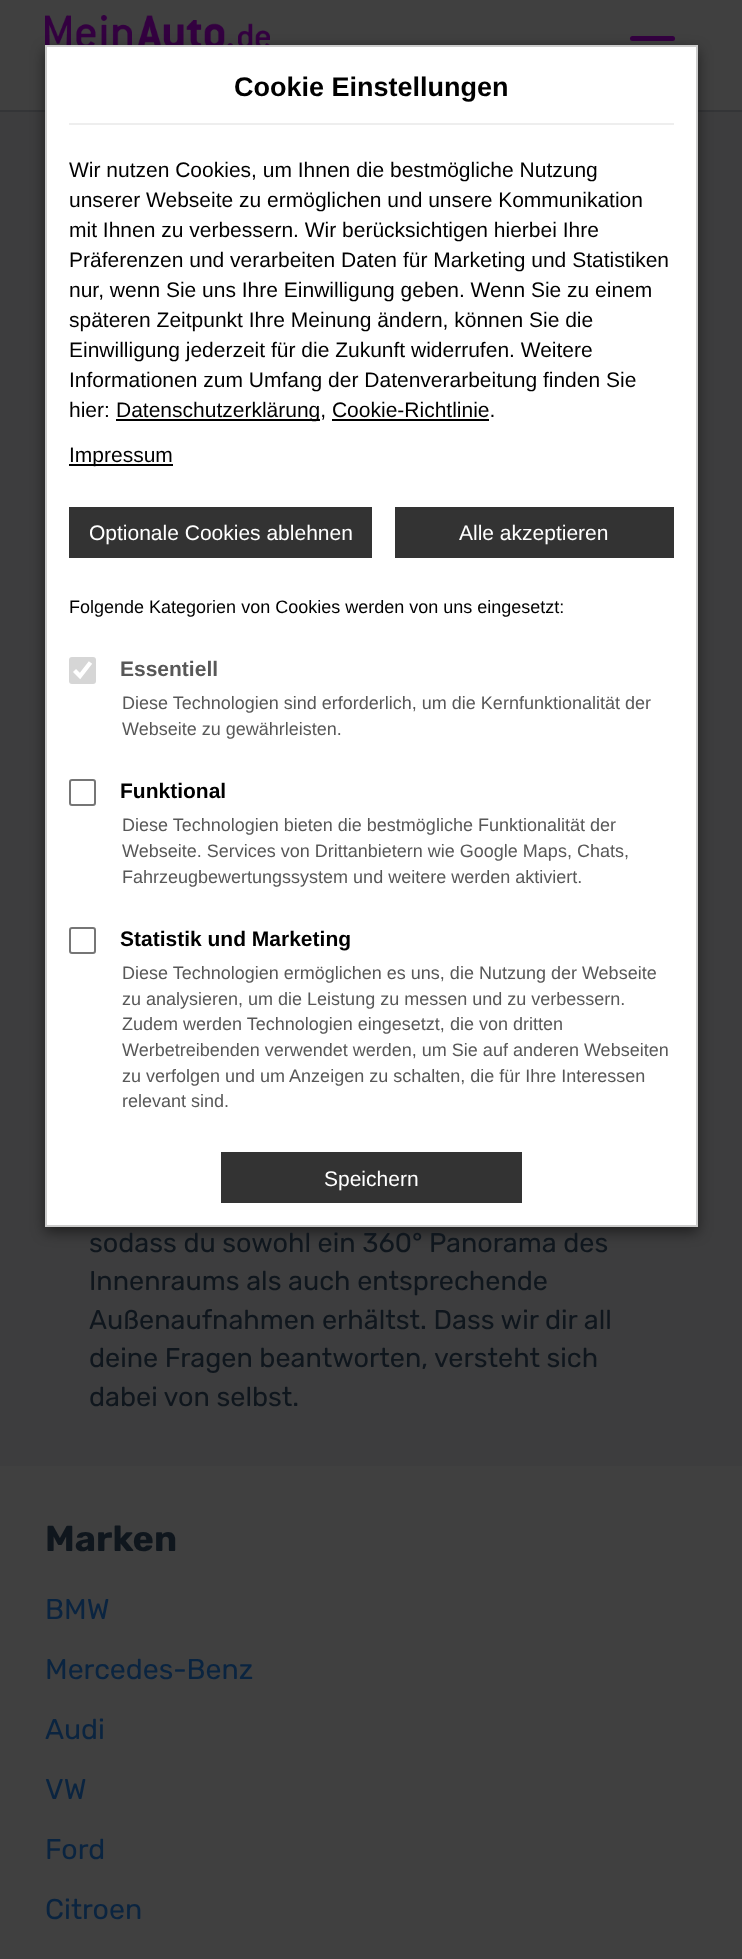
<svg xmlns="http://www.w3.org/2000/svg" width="742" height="1959">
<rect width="100%" height="100%" fill="#404040"/>
<rect y="110" width="742" height="2" fill="#343537"/>
<image x="45" y="15" width="225" height="30" href="media/1.png"/>
<rect x="630" y="36" width="45" height="5" rx="2.5" fill="#330040"/>
<rect y="112" width="742" height="1354" fill="#3d3d3e"/>
<rect x="45" y="50" width="653" height="1182" fill="#00000080" filter="blur(7px)"/>
<rect x="46" y="46" width="651" height="1180" fill="#fff" stroke="#ccc" stroke-width="2"/>
<rect x="69" y="123" width="605" height="2" fill="#eee"/>
<text x="234" y="96" style="font-family:Liberation Sans;font-size:27px;font-weight:bold;fill:#000">Cookie Einstellungen</text>
<text x="69" y="177" style="font-family:Liberation Sans;font-size:21px;fill:#000">Wir nutzen Cookies, um Ihnen die bestmögliche Nutzung</text>
<text x="69" y="207" style="font-family:Liberation Sans;font-size:21px;fill:#000">unserer Webseite zu ermöglichen und unsere Kommunikation</text>
<text x="69" y="237" style="font-family:Liberation Sans;font-size:21px;fill:#000">mit Ihnen zu verbessern. Wir berücksichtigen hierbei Ihre</text>
<text x="69" y="267" style="font-family:Liberation Sans;font-size:21px;fill:#000">Präferenzen und verarbeiten Daten für Marketing und Statistiken</text>
<text x="69" y="297" style="font-family:Liberation Sans;font-size:21px;fill:#000">nur, wenn Sie uns Ihre Einwilligung geben. Wenn Sie zu einem</text>
<text x="69" y="327" style="font-family:Liberation Sans;font-size:21px;fill:#000">späteren Zeitpunkt Ihre Meinung ändern, können Sie die</text>
<text x="69" y="357" style="font-family:Liberation Sans;font-size:21px;fill:#000">Einwilligung jederzeit für die Zukunft widerrufen. Weitere</text>
<text x="69" y="387" style="font-family:Liberation Sans;font-size:21px;fill:#000">Informationen zum Umfang der Datenverarbeitung finden Sie</text>
<text x="69" y="417" style="font-family:Liberation Sans;font-size:21px;fill:#000">hier:</text>
<rect x="116" y="419" width="204" height="2" fill="#000"/>
<text x="116" y="417" style="font-family:Liberation Sans;font-size:21px;fill:#000">Datenschutzerklärung, Cookie-Richtlinie.</text>
<rect x="332" y="419" width="157" height="2" fill="#000"/>
<rect x="69" y="464" width="104" height="2" fill="#000"/>
<text x="69" y="462" style="font-family:Liberation Sans;font-size:21px;fill:#000">Impressum</text>
<rect x="69" y="507" width="303" height="51" fill="#333"/>
<text x="89" y="540" style="font-family:Liberation Sans;font-size:21px;fill:#fff">Optionale Cookies ablehnen</text>
<rect x="395" y="507" width="279" height="51" fill="#333"/>
<text x="459" y="540" style="font-family:Liberation Sans;font-size:21px;fill:#fff">Alle akzeptieren</text>
<text x="69" y="613" style="font-family:Liberation Sans;font-size:18px;fill:#000">Folgende Kategorien von Cookies werden von uns eingesetzt:</text>
<rect x="69" y="657" width="27" height="27" rx="3" fill="#d6d6d6"/>
<path d="M74.5 670.5l5.5 5.5l10.5-13.5" fill="none" stroke="#fff" stroke-width="4.3"/>
<text x="120" y="676" style="font-family:Liberation Sans;font-size:21px;font-weight:bold;fill:#585858">Essentiell</text>
<text x="122" y="709" style="font-family:Liberation Sans;font-size:18px;fill:#585858">Diese Technologien sind erforderlich, um die Kernfunktionalität der</text>
<text x="122" y="735" style="font-family:Liberation Sans;font-size:18px;fill:#585858">Webseite zu gewährleisten.</text>
<rect x="70" y="780" width="25" height="25" rx="2" fill="none" stroke="#767676" stroke-width="2"/>
<text x="120" y="798" style="font-family:Liberation Sans;font-size:21px;font-weight:bold;fill:#000">Funktional</text>
<text x="122" y="831" style="font-family:Liberation Sans;font-size:18px;fill:#585858">Diese Technologien bieten die bestmögliche Funktionalität der</text>
<text x="122" y="857" style="font-family:Liberation Sans;font-size:18px;fill:#585858">Webseite. Services von Drittanbietern wie Google Maps, Chats,</text>
<text x="122" y="883" style="font-family:Liberation Sans;font-size:18px;fill:#585858">Fahrzeugbewertungssystem und weitere werden aktiviert.</text>
<rect x="70" y="928" width="25" height="25" rx="2" fill="none" stroke="#767676" stroke-width="2"/>
<text x="120" y="946" style="font-family:Liberation Sans;font-size:21px;font-weight:bold;fill:#000">Statistik und Marketing</text>
<text x="122" y="979" style="font-family:Liberation Sans;font-size:18px;fill:#585858">Diese Technologien ermöglichen es uns, die Nutzung der Webseite</text>
<text x="122" y="1005" style="font-family:Liberation Sans;font-size:18px;fill:#585858">zu analysieren, um die Leistung zu messen und zu verbessern.</text>
<text x="122" y="1030" style="font-family:Liberation Sans;font-size:18px;fill:#585858">Zudem werden Technologien eingesetzt, die von dritten</text>
<text x="122" y="1056" style="font-family:Liberation Sans;font-size:18px;fill:#585858">Werbetreibenden verwendet werden, um Sie auf anderen Webseiten</text>
<text x="122" y="1082" style="font-family:Liberation Sans;font-size:18px;fill:#585858">zu verfolgen und um Anzeigen zu schalten, die für Ihre Interessen</text>
<text x="122" y="1107" style="font-family:Liberation Sans;font-size:18px;fill:#585858">relevant sind.</text>
<rect x="221" y="1152" width="301" height="51" fill="#333"/>
<text x="324" y="1186" style="font-family:Liberation Sans;font-size:21px;fill:#fff">Speichern</text>
<text x="89" y="1252" style="font-family:Rubik;font-size:27px;fill:#0f161d">sodass du sowohl ein 360° Panorama des</text>
<text x="89" y="1290" style="font-family:Rubik;font-size:27px;fill:#0f161d">Innenraums als auch entsprechende</text>
<text x="89" y="1329" style="font-family:Rubik;font-size:27px;fill:#0f161d">Außenaufnahmen erhältst. Dass wir dir all</text>
<text x="89" y="1367" style="font-family:Rubik;font-size:27px;fill:#0f161d">deine Fragen beantworten, versteht sich</text>
<text x="89" y="1406" style="font-family:Rubik;font-size:27px;fill:#0f161d">dabei von selbst.</text>
<text x="45" y="1551" style="font-family:Rubik;font-size:36px;font-weight:bold;fill:#0f161d">Marken</text>
<text x="45" y="1619" style="font-family:Rubik;font-size:28.5px;fill:#0a2440">BMW</text>
<text x="45" y="1679" style="font-family:Rubik;font-size:28.5px;fill:#0a2440">Mercedes-Benz</text>
<text x="45" y="1739" style="font-family:Rubik;font-size:28.5px;fill:#0a2440">Audi</text>
<text x="45" y="1799" style="font-family:Rubik;font-size:28.5px;fill:#0a2440">VW</text>
<text x="45" y="1859" style="font-family:Rubik;font-size:28.5px;fill:#0a2440">Ford</text>
<text x="45" y="1919" style="font-family:Rubik;font-size:28.5px;fill:#0a2440">Citroen</text>
</svg>
